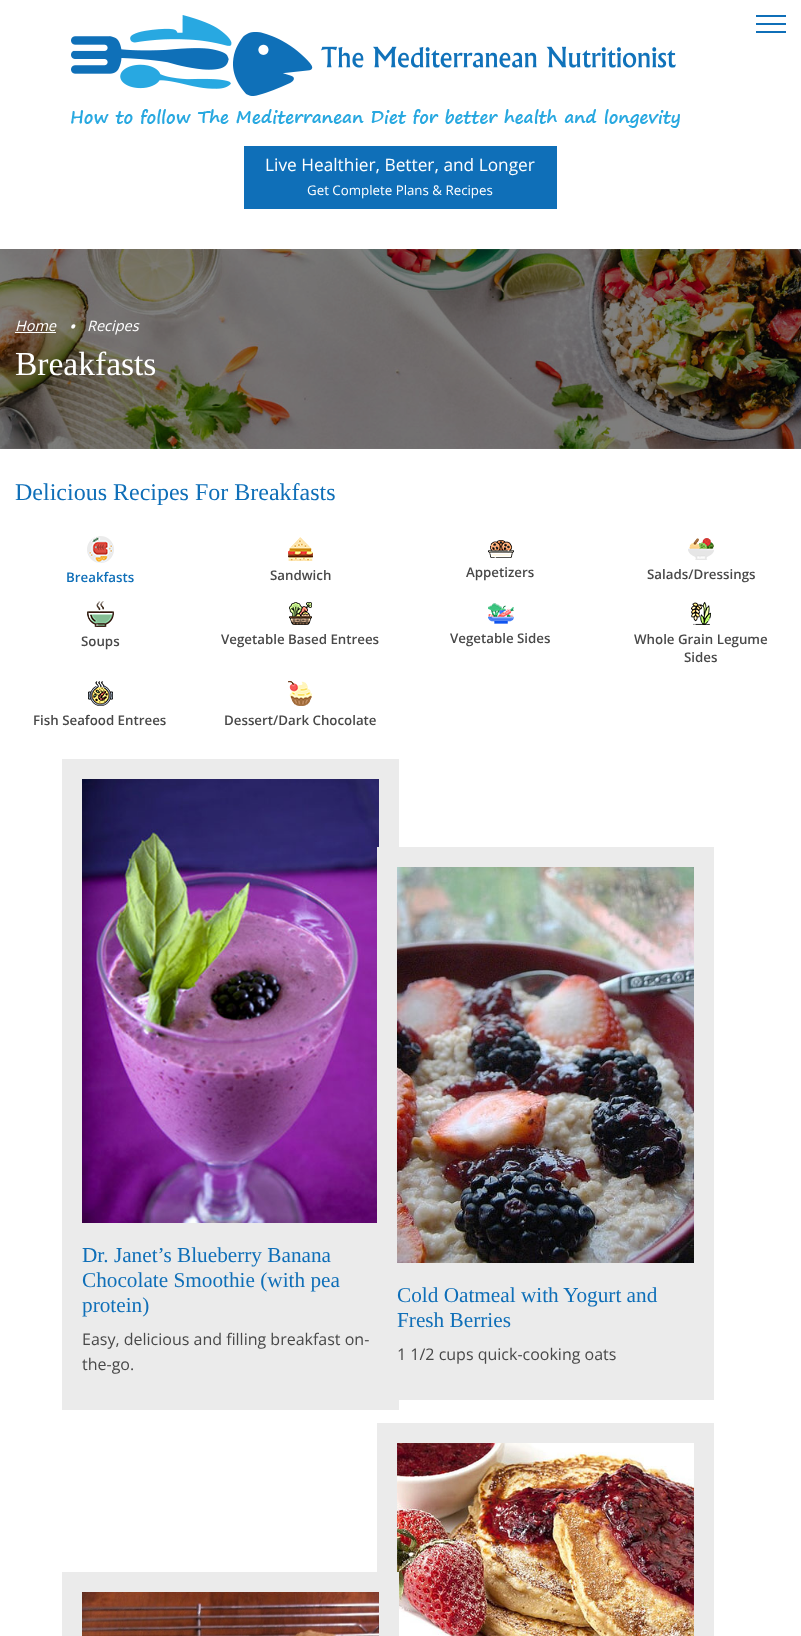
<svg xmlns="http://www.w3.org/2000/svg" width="801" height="1636">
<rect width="100%" height="100%" fill="#fff"/>
<image x="71" y="15" width="609" height="113" href="media/1.png"/>
<rect x="756" y="15" width="30" height="2" fill="#0f6fb8"/>
<rect x="756" y="23" width="30" height="2" fill="#0f6fb8"/>
<rect x="756" y="31" width="30" height="2" fill="#0f6fb8"/>
<rect x="244" y="146" width="313" height="63" fill="#0f6fb8"/>
<text x="265" y="171" style="font-family:Open Sans;font-size:17.3px;fill:#fff">Live Healthier, Better, and Longer</text>
<text x="307" y="195" style="font-family:Open Sans;font-size:13.3px;fill:#fff">Get Complete Plans &amp; Recipes</text>
<image x="0" y="249" width="801" height="200" href="media/2.png"/>
<text x="15" y="331" style="font-family:Open Sans;font-size:14.5px;font-style:italic;fill:#fff">Home</text>
<rect x="15" y="332" width="41" height="1" fill="#fff"/>
<text x="66" y="338" style="font-family:Open Sans;font-size:33.5px;font-style:italic;fill:#fff">·</text>
<text x="87" y="331" style="font-family:Open Sans;font-size:14.5px;font-style:italic;fill:#fff">Recipes</text>
<text x="15" y="375" style="font-family:Liberation Serif;font-size:33.5px;fill:#fff">Breakfasts</text>
<text x="15" y="500" style="font-family:Liberation Serif;font-size:24px;fill:#0f6fb8">Delicious Recipes For Breakfasts</text>
<image x="87" y="536" width="27" height="27" href="media/3.png"/>
<text x="66" y="582" style="font-family:Open Sans;font-size:13.3px;font-weight:600;fill:#0f6fb8">Breakfasts</text>
<image x="288" y="537" width="25" height="24" href="media/4.png"/>
<text x="270" y="580" style="font-family:Open Sans;font-size:13.3px;font-weight:600;fill:#484848">Sandwich</text>
<image x="488" y="540" width="26" height="18" href="media/5.png"/>
<text x="466" y="577" style="font-family:Open Sans;font-size:13.3px;font-weight:600;fill:#484848">Appetizers</text>
<image x="688" y="538" width="26" height="22" href="media/6.png"/>
<text x="647" y="579" style="font-family:Open Sans;font-size:13.3px;font-weight:600;fill:#484848">Salads/Dressings</text>
<image x="87" y="601" width="27" height="26" href="media/7.png"/>
<text x="81" y="646" style="font-family:Open Sans;font-size:13.3px;font-weight:600;fill:#484848">Soups</text>
<image x="289" y="602" width="23" height="23" href="media/8.png"/>
<text x="221" y="644" style="font-family:Open Sans;font-size:13.3px;font-weight:600;fill:#484848">Vegetable Based Entrees</text>
<image x="488" y="603" width="26" height="21" href="media/9.png"/>
<text x="450" y="643" style="font-family:Open Sans;font-size:13.3px;font-weight:600;fill:#484848">Vegetable Sides</text>
<image x="691" y="602" width="20" height="23" href="media/10.png"/>
<text x="634" y="644" style="font-family:Open Sans;font-size:13.3px;font-weight:600;fill:#484848">Whole Grain Legume</text>
<text x="684" y="662" style="font-family:Open Sans;font-size:13.3px;font-weight:600;fill:#484848">Sides</text>
<image x="88" y="681" width="25" height="25" href="media/11.png"/>
<text x="33" y="725" style="font-family:Open Sans;font-size:13.3px;font-weight:600;fill:#484848">Fish Seafood Entrees</text>
<image x="288" y="681" width="24" height="25" href="media/12.png"/>
<text x="224" y="725" style="font-family:Open Sans;font-size:13.3px;font-weight:600;fill:#484848">Dessert/Dark Chocolate</text>
<rect x="62" y="759" width="337" height="651" fill="#ebebeb"/>
<image x="82" y="779" width="297" height="444" href="media/13.png"/>
<text x="82" y="1262" style="font-family:Liberation Serif;font-size:21.25px;fill:#0f6fb8">Dr. Janet’s Blueberry Banana</text>
<text x="82" y="1287" style="font-family:Liberation Serif;font-size:21.25px;fill:#0f6fb8">Chocolate Smoothie (with pea</text>
<text x="82" y="1312" style="font-family:Liberation Serif;font-size:21.25px;fill:#0f6fb8">protein)</text>
<text x="82" y="1345" style="font-family:Open Sans;font-size:16px;fill:#484848">Easy, delicious and filling breakfast on-</text>
<text x="82" y="1370" style="font-family:Open Sans;font-size:16px;fill:#484848">the-go.</text>
<rect x="377" y="847" width="337" height="553" fill="#ebebeb"/>
<image x="397" y="867" width="297" height="396" href="media/14.png"/>
<text x="397" y="1302" style="font-family:Liberation Serif;font-size:21.25px;fill:#0f6fb8">Cold Oatmeal with Yogurt and</text>
<text x="397" y="1327" style="font-family:Liberation Serif;font-size:21.25px;fill:#0f6fb8">Fresh Berries</text>
<text x="397" y="1360" style="font-family:Open Sans;font-size:16px;fill:#484848">1 1/2 cups quick-cooking oats</text>
<rect x="377" y="1423" width="337" height="213" fill="#ebebeb"/>
<image x="397" y="1443" width="297" height="193" href="media/16.png"/>
<rect x="62" y="1572" width="337" height="64" fill="#ebebeb"/>
<image x="82" y="1592" width="297" height="44" href="media/15.png"/>
</svg>
